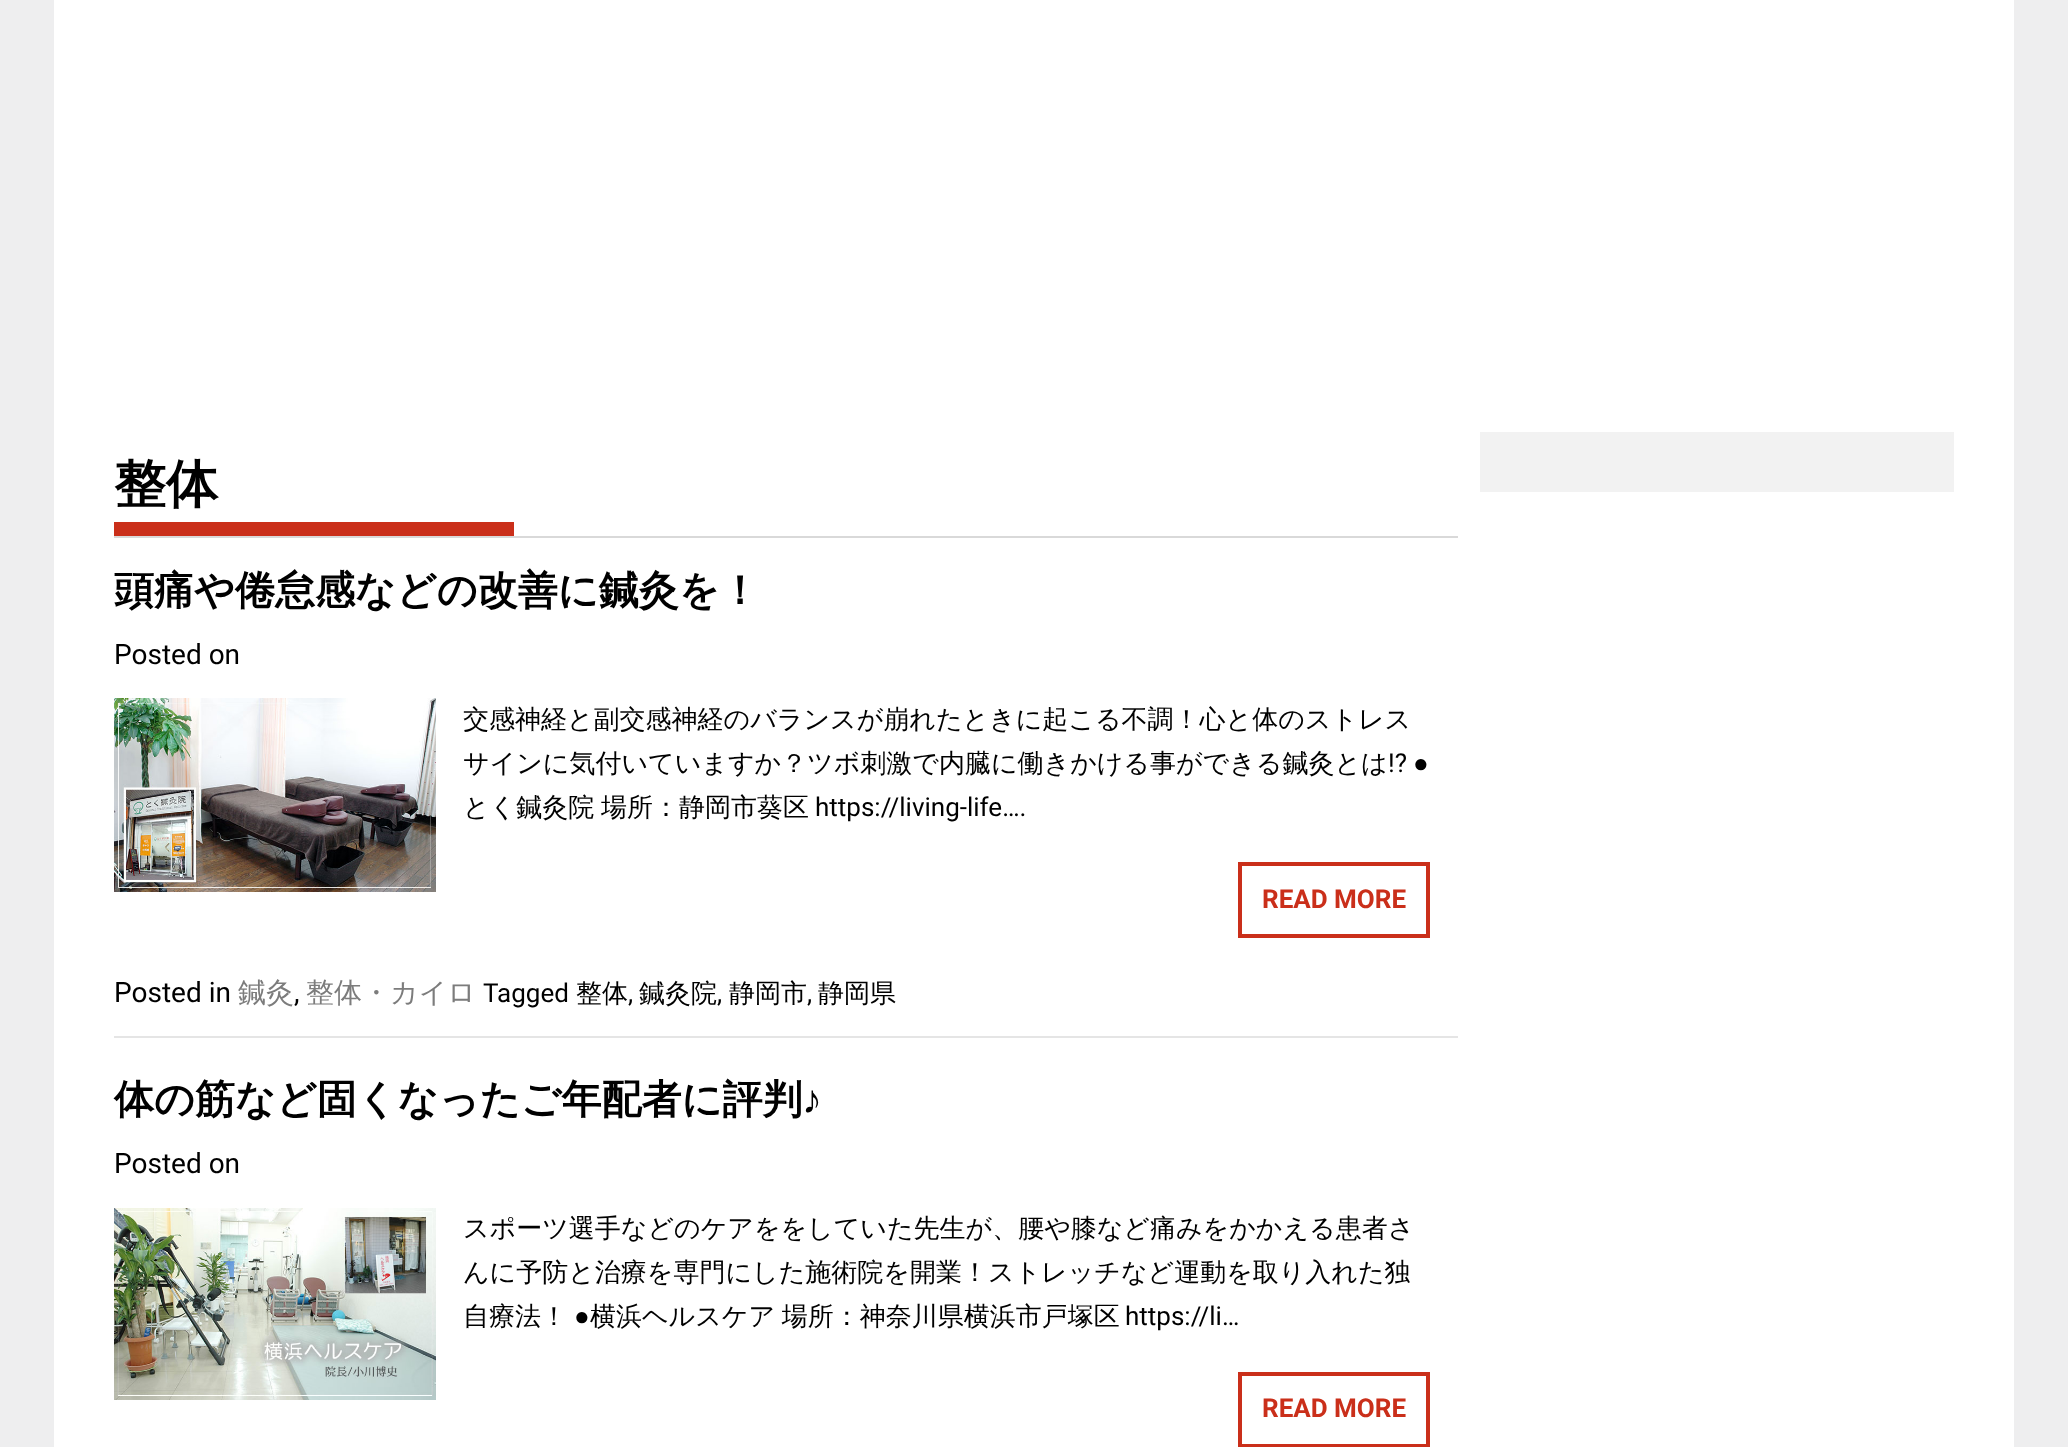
<svg xmlns="http://www.w3.org/2000/svg" width="2068" height="1447">
<rect width="100%" height="100%" fill="#eeeeef"/>
<rect x="54" width="1960" height="1447" fill="#fff"/>
<rect x="114" y="536" width="1344" height="2" fill="#d9d9d9"/>
<text x="114" y="502" style="font-family:WenQuanYi Zen Hei;font-size:52px;font-weight:bold;fill:#000">整体</text>
<rect x="114" y="522" width="400" height="14" fill="#ca2f1a"/>
<rect x="114" y="1036" width="1344" height="2" fill="#e5e5e5"/>
<text x="114" y="604" style="font-family:WenQuanYi Zen Hei;font-size:40px;font-weight:bold;fill:#000">頭痛や倦怠感などの改善に鍼灸を！</text>
<text x="114" y="664" style="font-family:Roboto;font-size:28px;fill:#000">Posted on</text>
<image x="114" y="698" width="322" height="194" href="media/1.png"/>
<text x="463" y="728" style="font-family:WenQuanYi Zen Hei;font-size:26px;font-weight:500;fill:#000">交感神経と副交感神経のバランスが崩れたときに起こる不調！心と体のストレス</text>
<text x="463" y="772" style="font-family:WenQuanYi Zen Hei;font-size:26px;font-weight:500;fill:#000">サインに気付いていますか？ツボ刺激で内臓に働きかける事ができる鍼灸とは</text>
<text x="1388" y="772" style="font-family:Roboto;font-size:26px;fill:#000">!?</text>
<text x="1413" y="772" style="font-family:Liberation Sans;font-size:26px;fill:#000">●</text>
<text x="463" y="816" word-spacing="-1" style="font-family:WenQuanYi Zen Hei;font-size:26px;font-weight:500;fill:#000">とく鍼灸院 場所：静岡市葵区</text>
<text x="815" y="816" style="font-family:Roboto;font-size:26px;fill:#000">https://living-life….</text>
<rect x="1240" y="864" width="188" height="72" fill="none" stroke="#ca2f1a" stroke-width="4"/>
<text x="1262" y="908" style="font-family:Roboto;font-size:26px;font-weight:bold;fill:#ca2f1a">READ MORE</text>
<text x="114" y="1002" style="font-family:Roboto;font-size:28px;fill:#000">Posted in</text>
<text x="238" y="1002" style="font-family:WenQuanYi Zen Hei;font-size:28px;font-weight:500;fill:#7c7c7c">鍼灸</text>
<text x="294" y="1002" style="font-family:Roboto;font-size:28px;fill:#000">,</text>
<text x="306" y="1002" style="font-family:WenQuanYi Zen Hei;font-size:28px;font-weight:500;fill:#7c7c7c">整体・カイロ</text>
<text x="483" y="1002" style="font-family:Roboto;font-size:26px;fill:#000">Tagged</text>
<text x="576" y="1002" style="font-family:WenQuanYi Zen Hei;font-size:26px;font-weight:500;fill:#000">整体</text>
<text x="628" y="1002" style="font-family:Roboto;font-size:26px;fill:#000">,</text>
<text x="639" y="1002" style="font-family:WenQuanYi Zen Hei;font-size:26px;font-weight:500;fill:#000">鍼灸院</text>
<text x="717" y="1002" style="font-family:Roboto;font-size:26px;fill:#000">,</text>
<text x="729" y="1002" style="font-family:WenQuanYi Zen Hei;font-size:26px;font-weight:500;fill:#000">静岡市</text>
<text x="807" y="1002" style="font-family:Roboto;font-size:26px;fill:#000">,</text>
<text x="818" y="1002" style="font-family:WenQuanYi Zen Hei;font-size:26px;font-weight:500;fill:#000">静岡県</text>
<text x="114" y="1113" style="font-family:WenQuanYi Zen Hei;font-size:40px;font-weight:bold;fill:#000">体の筋など固くなったご年配者に評判</text>
<text x="802" y="1113" style="font-family:Liberation Sans;font-size:40px;font-weight:bold;fill:#000">♪</text>
<text x="114" y="1173" style="font-family:Roboto;font-size:28px;fill:#000">Posted on</text>
<image x="114" y="1208" width="322" height="192" href="media/2.png"/>
<text x="463" y="1237" style="font-family:WenQuanYi Zen Hei;font-size:26px;font-weight:500;fill:#000">スポーツ選手などのケアををしていた先生が、腰や膝など痛みをかかえる患者さ</text>
<text x="463" y="1281" style="font-family:WenQuanYi Zen Hei;font-size:26px;font-weight:500;fill:#000">んに予防と治療を専門にした施術院を開業！ストレッチなど運動を取り入れた独</text>
<text x="463" y="1325" style="font-family:WenQuanYi Zen Hei;font-size:26px;font-weight:500;fill:#000">自療法！</text>
<text x="574" y="1325" style="font-family:Liberation Sans;font-size:26px;fill:#000">●</text>
<text x="590" y="1325" word-spacing="-1" style="font-family:WenQuanYi Zen Hei;font-size:26px;font-weight:500;fill:#000">横浜ヘルスケア 場所：神奈川県横浜市戸塚区</text>
<text x="1125" y="1325" style="font-family:Roboto;font-size:26px;fill:#000">https://li…</text>
<rect x="1240" y="1374" width="188" height="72" fill="none" stroke="#ca2f1a" stroke-width="4"/>
<text x="1262" y="1417" style="font-family:Roboto;font-size:26px;font-weight:bold;fill:#ca2f1a">READ MORE</text>
<rect x="1480" y="432" width="474" height="60" fill="#f2f2f2"/>
</svg>
